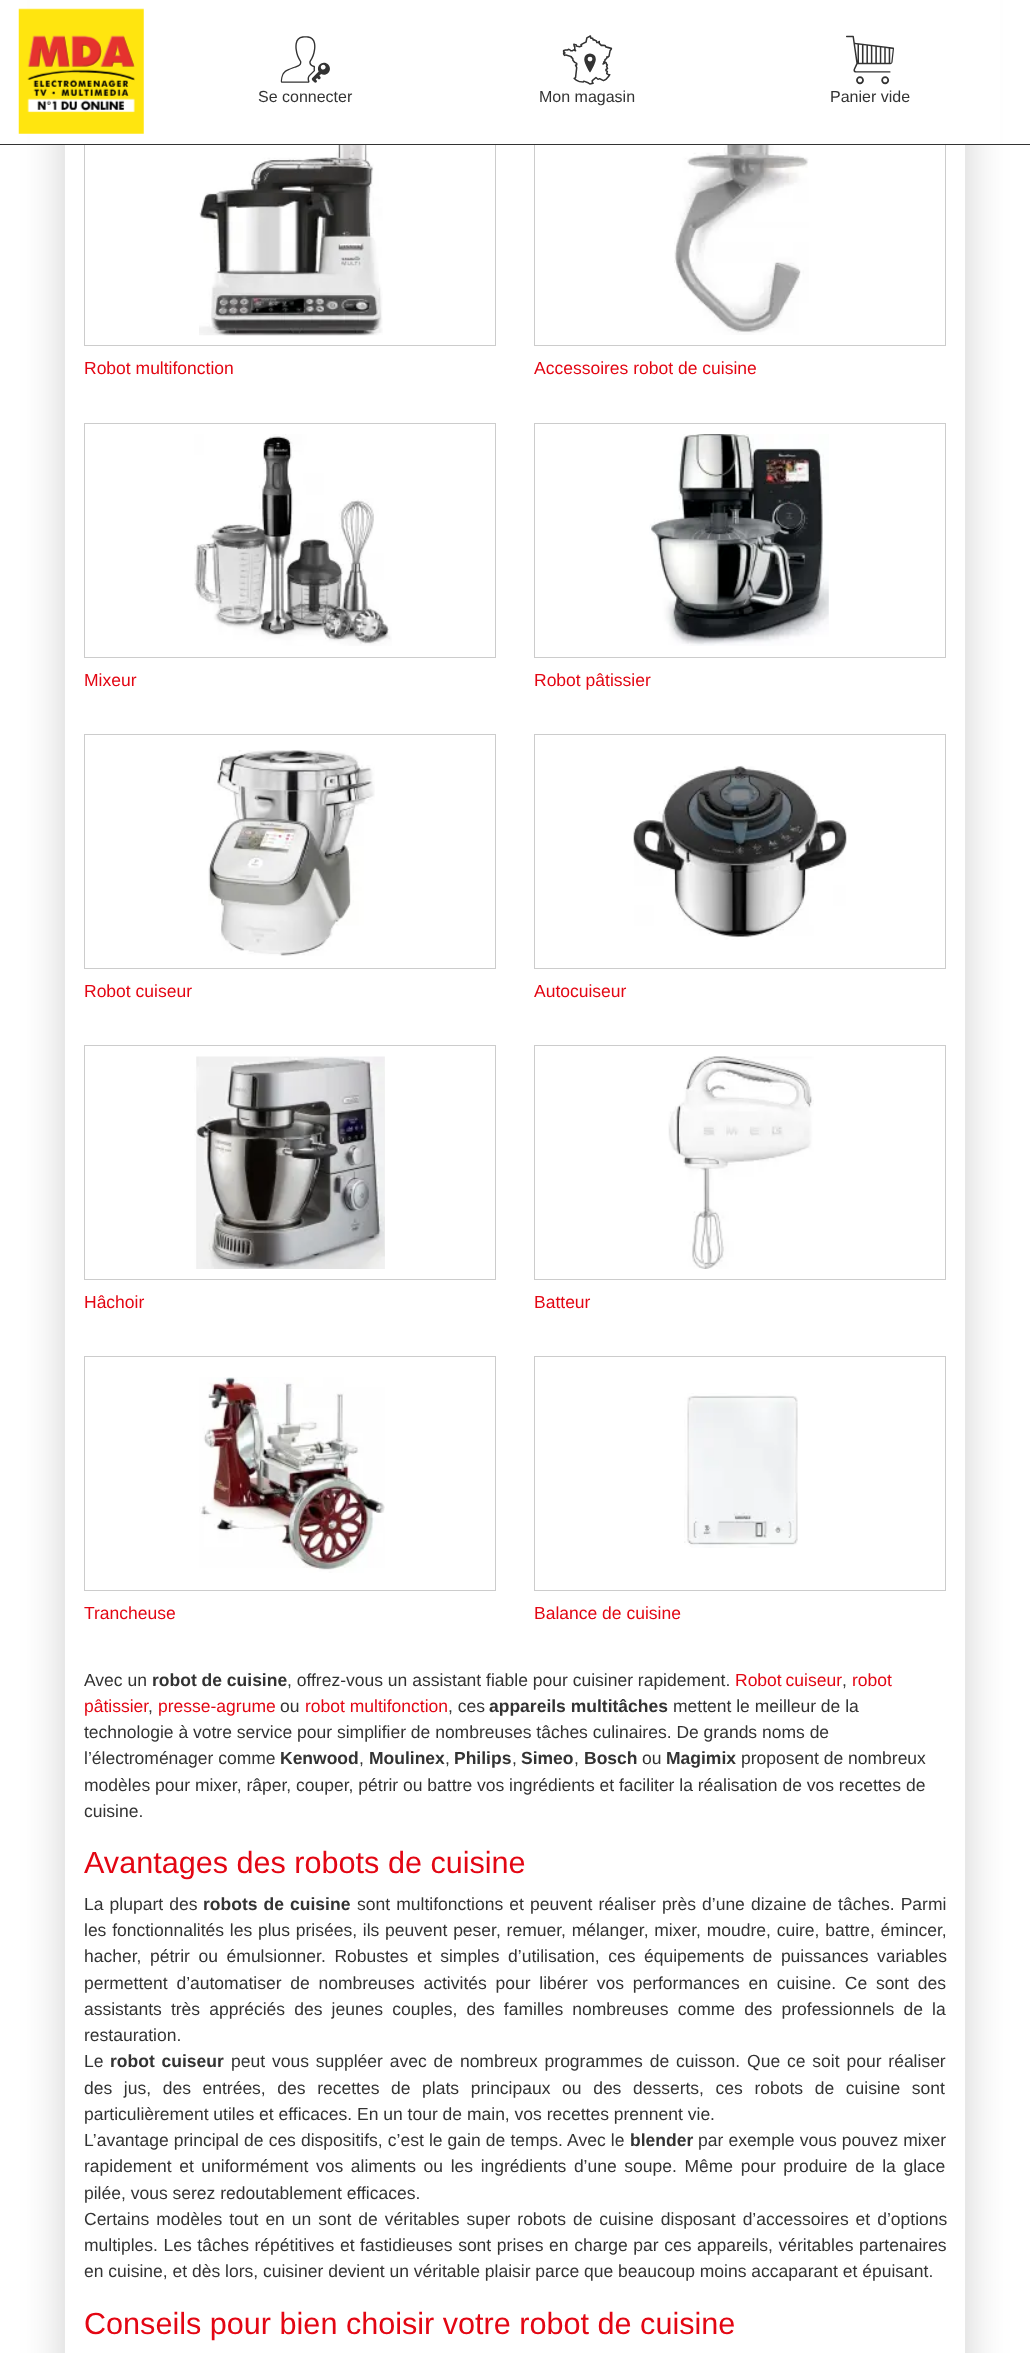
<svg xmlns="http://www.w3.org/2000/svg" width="1030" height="2353">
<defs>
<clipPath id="clip1"><path d="M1 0h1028v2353h-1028zm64-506h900v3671h-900z" clip-rule="evenodd"/></clipPath>
</defs>
<rect width="100%" height="100%" fill="#fff"/>
<g clip-path="url(#clip1)">
<rect x="59" y="-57" width="912" height="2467" fill="#00000026" filter="blur(19px)"/>
</g>
<rect x="84.5" y="111.5" width="411" height="234" fill="none" stroke="#ccc"/>
<rect x="534.5" y="111.5" width="411" height="234" fill="none" stroke="#ccc"/>
<rect x="30" width="970" height="144" fill="#fff"/>
<rect y="144" width="1030" height="1" fill="#333"/>
<image x="18" y="8" width="126" height="126" href="media/1.png"/>
<image x="280" y="36" width="50" height="47" href="media/2.png"/>
<text x="258" y="102" style="font-family:Liberation Sans;font-size:16px;fill:#333">Se connecter</text>
<image x="562" y="35" width="51" height="50" href="media/3.png"/>
<text x="539" y="102" style="font-family:Liberation Sans;font-size:16px;fill:#333">Mon magasin</text>
<image x="846" y="35" width="48" height="50" href="media/4.png"/>
<text x="830" y="102" style="font-family:Liberation Sans;font-size:16px;fill:#333">Panier vide</text>
<image x="199" y="145" width="184" height="191" href="media/5.png"/>
<text x="84" y="374" style="font-family:Liberation Sans;font-size:17.5px;fill:#e30613">Robot multifonction</text>
<image x="674" y="145" width="135" height="190" href="media/6.png"/>
<text x="534" y="374" style="font-family:Liberation Sans;font-size:17.5px;fill:#e30613">Accessoires robot de cuisine</text>
<rect x="84.5" y="423.5" width="411" height="234" fill="none" stroke="#ccc"/>
<image x="194" y="434" width="198" height="212" href="media/7.png"/>
<text x="84" y="686" style="font-family:Liberation Sans;font-size:17.5px;fill:#e30613">Mixeur</text>
<rect x="534.5" y="423.5" width="411" height="234" fill="none" stroke="#ccc"/>
<image x="649" y="434" width="180" height="212" href="media/8.png"/>
<text x="534" y="686" style="font-family:Liberation Sans;font-size:17.5px;fill:#e30613">Robot pâtissier</text>
<rect x="84.5" y="734.5" width="411" height="234" fill="none" stroke="#ccc"/>
<image x="208" y="750" width="167" height="206" href="media/9.png"/>
<text x="84" y="997" style="font-family:Liberation Sans;font-size:17.5px;fill:#e30613">Robot cuiseur</text>
<rect x="534.5" y="734.5" width="411" height="234" fill="none" stroke="#ccc"/>
<image x="633" y="765" width="214" height="175" href="media/10.png"/>
<text x="534" y="997" style="font-family:Liberation Sans;font-size:17.5px;fill:#e30613">Autocuiseur</text>
<rect x="84.5" y="1045.5" width="411" height="234" fill="none" stroke="#ccc"/>
<image x="194" y="1056" width="191" height="213" href="media/11.png"/>
<text x="84" y="1308" style="font-family:Liberation Sans;font-size:17.5px;fill:#e30613">Hâchoir</text>
<rect x="534.5" y="1045.5" width="411" height="234" fill="none" stroke="#ccc"/>
<image x="668" y="1056" width="146" height="213" href="media/12.png"/>
<text x="534" y="1308" style="font-family:Liberation Sans;font-size:17.5px;fill:#e30613">Batteur</text>
<rect x="84.5" y="1356.5" width="411" height="234" fill="none" stroke="#ccc"/>
<image x="199" y="1377" width="186" height="196" href="media/13.png"/>
<text x="84" y="1619" style="font-family:Liberation Sans;font-size:17.5px;fill:#e30613">Trancheuse</text>
<rect x="534.5" y="1356.5" width="411" height="234" fill="none" stroke="#ccc"/>
<image x="684" y="1393" width="114" height="155" href="media/14.png"/>
<text x="534" y="1619" style="font-family:Liberation Sans;font-size:17.5px;fill:#e30613">Balance de cuisine</text>
<text x="84" y="1686" style="font-family:Liberation Sans;font-size:17.5px;fill:#333">Avec un</text>
<text x="152" y="1686" style="font-family:Liberation Sans;font-size:17.5px;font-weight:bold;fill:#333">robot de cuisine</text>
<text x="287" y="1686" style="font-family:Liberation Sans;font-size:17.5px;fill:#333">, offrez-vous un assistant fiable pour cuisiner rapidement.</text>
<text x="735" y="1686" word-spacing="-1" style="font-family:Liberation Sans;font-size:17.5px;fill:#e30613">Robot cuiseur</text>
<text x="842" y="1686" style="font-family:Liberation Sans;font-size:17.5px;fill:#333">,</text>
<text x="852" y="1686" style="font-family:Liberation Sans;font-size:17.5px;fill:#e30613">robot</text>
<text x="84" y="1712" style="font-family:Liberation Sans;font-size:17.5px;fill:#e30613">pâtissier</text>
<text x="148" y="1712" style="font-family:Liberation Sans;font-size:17.5px;fill:#333">,</text>
<text x="158" y="1712" style="font-family:Liberation Sans;font-size:17.5px;fill:#e30613">presse-agrume</text>
<text x="280" y="1712" style="font-family:Liberation Sans;font-size:17.5px;fill:#333">ou</text>
<text x="305" y="1712" style="font-family:Liberation Sans;font-size:17.5px;fill:#e30613">robot multifonction</text>
<text x="448" y="1712" style="font-family:Liberation Sans;font-size:17.5px;fill:#333">, ces</text>
<text x="489" y="1712" style="font-family:Liberation Sans;font-size:17.5px;font-weight:bold;fill:#333">appareils multitâches</text>
<text x="673" y="1712" style="font-family:Liberation Sans;font-size:17.5px;fill:#333">mettent le meilleur de la</text>
<text x="84" y="1738" style="font-family:Liberation Sans;font-size:17.5px;fill:#333">technologie à votre service pour simplifier de nombreuses tâches culinaires. De grands noms de</text>
<text x="84" y="1764" style="font-family:Liberation Sans;font-size:17.5px;fill:#333">l’électroménager comme</text>
<text x="280" y="1764" style="font-family:Liberation Sans;font-size:17.5px;font-weight:bold;fill:#333">Kenwood</text>
<text x="359" y="1764" style="font-family:Liberation Sans;font-size:17.5px;fill:#333">,</text>
<text x="369" y="1764" style="font-family:Liberation Sans;font-size:17.5px;font-weight:bold;fill:#333">Moulinex</text>
<text x="445" y="1764" style="font-family:Liberation Sans;font-size:17.5px;fill:#333">,</text>
<text x="454" y="1764" style="font-family:Liberation Sans;font-size:17.5px;font-weight:bold;fill:#333">Philips</text>
<text x="512" y="1764" style="font-family:Liberation Sans;font-size:17.5px;fill:#333">,</text>
<text x="521" y="1764" style="font-family:Liberation Sans;font-size:17.5px;font-weight:bold;fill:#333">Simeo</text>
<text x="574" y="1764" style="font-family:Liberation Sans;font-size:17.5px;fill:#333">,</text>
<text x="584" y="1764" style="font-family:Liberation Sans;font-size:17.5px;font-weight:bold;fill:#333">Bosch</text>
<text x="642" y="1764" style="font-family:Liberation Sans;font-size:17.5px;fill:#333">ou</text>
<text x="666" y="1764" style="font-family:Liberation Sans;font-size:17.5px;font-weight:bold;fill:#333">Magimix</text>
<text x="741" y="1764" style="font-family:Liberation Sans;font-size:17.5px;fill:#333">proposent de nombreux</text>
<text x="84" y="1791" style="font-family:Liberation Sans;font-size:17.5px;fill:#333">modèles pour mixer, râper, couper, pétrir ou battre vos ingrédients et faciliter la réalisation de vos recettes de</text>
<text x="84" y="1817" style="font-family:Liberation Sans;font-size:17.5px;fill:#333">cuisine.</text>
<text x="84" y="1873" style="font-family:Liberation Sans;font-size:30.6px;fill:#e30613">Avantages des robots de cuisine</text>
<text x="84" y="1910" word-spacing="1.25" style="font-family:Liberation Sans;font-size:17.5px;fill:#333">La plupart des</text>
<text x="203" y="1910" word-spacing="1.25" style="font-family:Liberation Sans;font-size:17.5px;font-weight:bold;fill:#333">robots de cuisine</text>
<text x="357" y="1910" word-spacing="1.25" style="font-family:Liberation Sans;font-size:17.5px;fill:#333">sont multifonctions et peuvent réaliser près d’une dizaine de tâches. Parmi</text>
<text x="84" y="1936" word-spacing="0.9" style="font-family:Liberation Sans;font-size:17.5px;fill:#333">les fonctionnalités les plus prisées, ils peuvent peser, remuer, mélanger, mixer, moudre, cuire, battre, émincer,</text>
<text x="84" y="1962" word-spacing="3.75" style="font-family:Liberation Sans;font-size:17.5px;fill:#333">hacher, pétrir ou émulsionner. Robustes et simples d’utilisation, ces équipements de puissances variables</text>
<text x="84" y="1989" word-spacing="3.9" style="font-family:Liberation Sans;font-size:17.5px;fill:#333">permettent d’automatiser de nombreuses activités pour libérer vos performances en cuisine. Ce sont des</text>
<text x="84" y="2015" word-spacing="4.25" style="font-family:Liberation Sans;font-size:17.5px;fill:#333">assistants très appréciés des jeunes couples, des familles nombreuses comme des professionnels de la</text>
<text x="84" y="2041" style="font-family:Liberation Sans;font-size:17.5px;fill:#333">restauration.</text>
<text x="84" y="2067" style="font-family:Liberation Sans;font-size:17.5px;fill:#333">Le</text>
<text x="110" y="2067" word-spacing="2" style="font-family:Liberation Sans;font-size:17.5px;font-weight:bold;fill:#333">robot cuiseur</text>
<text x="231" y="2067" word-spacing="2" style="font-family:Liberation Sans;font-size:17.5px;fill:#333">peut vous suppléer avec de nombreux programmes de cuisson. Que ce soit pour réaliser</text>
<text x="84" y="2094" word-spacing="6.75" style="font-family:Liberation Sans;font-size:17.5px;fill:#333">des jus, des entrées, des recettes de plats principaux ou des desserts, ces robots de cuisine sont</text>
<text x="84" y="2120" style="font-family:Liberation Sans;font-size:17.5px;fill:#333">particulièrement utiles et efficaces. En un tour de main, vos recettes prennent vie.</text>
<text x="84" y="2146" word-spacing="0.25" style="font-family:Liberation Sans;font-size:17.5px;fill:#333">L’avantage principal de ces dispositifs, c’est le gain de temps. Avec le</text>
<text x="630" y="2146" style="font-family:Liberation Sans;font-size:17.5px;font-weight:bold;fill:#333">blender</text>
<text x="698" y="2146" word-spacing="0.25" style="font-family:Liberation Sans;font-size:17.5px;fill:#333">par exemple vous pouvez mixer</text>
<text x="84" y="2172" word-spacing="2.75" style="font-family:Liberation Sans;font-size:17.5px;fill:#333">rapidement et uniformément vos aliments ou les ingrédients d’une soupe. Même pour produire de la glace</text>
<text x="84" y="2199" style="font-family:Liberation Sans;font-size:17.5px;fill:#333">pilée, vous serez redoutablement efficaces.</text>
<text x="84" y="2225" word-spacing="2.1" style="font-family:Liberation Sans;font-size:17.5px;fill:#333">Certains modèles tout en un sont de véritables super robots de cuisine disposant d’accessoires et d’options</text>
<text x="84" y="2251" word-spacing="0.75" style="font-family:Liberation Sans;font-size:17.5px;fill:#333">multiples. Les tâches répétitives et fastidieuses sont prises en charge par ces appareils, véritables partenaires</text>
<text x="84" y="2277" style="font-family:Liberation Sans;font-size:17.5px;fill:#333">en cuisine, et dès lors, cuisiner devient un véritable plaisir parce que beaucoup moins accaparant et épuisant.</text>
<text x="84" y="2334" style="font-family:Liberation Sans;font-size:30.6px;fill:#e30613">Conseils pour bien choisir votre robot de cuisine</text>
</svg>
